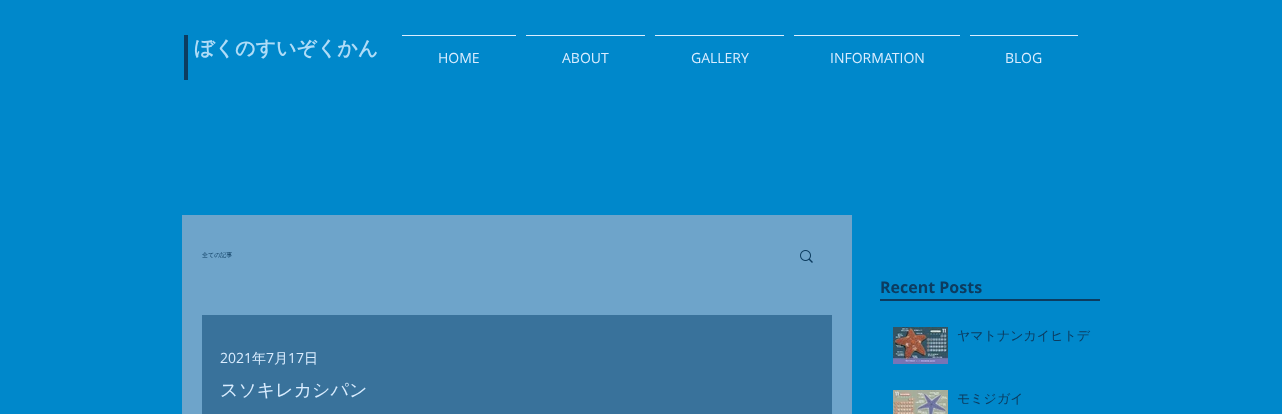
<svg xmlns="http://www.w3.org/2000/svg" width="1282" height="414">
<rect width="100%" height="100%" fill="#0088cb"/>
<rect x="184" y="35" width="4" height="45" fill="#0c3c60"/>
<text x="194" y="55" style="font-family:WenQuanYi Zen Hei;font-size:20px;font-weight:bold;fill:#afdcf7">ぼくのすいぞくかん</text>
<rect x="402" y="35" width="114" height="1" fill="#daedff"/>
<text x="438" y="63" style="font-family:Open Sans;font-size:14px;fill:#daedff">HOME</text>
<rect x="526" y="35" width="119" height="1" fill="#daedff"/>
<text x="562" y="63" style="font-family:Open Sans;font-size:14px;fill:#daedff">ABOUT</text>
<rect x="655" y="35" width="129" height="1" fill="#daedff"/>
<text x="691" y="63" style="font-family:Open Sans;font-size:14px;fill:#daedff">GALLERY</text>
<rect x="794" y="35" width="166" height="1" fill="#daedff"/>
<text x="830" y="63" style="font-family:Open Sans;font-size:14px;fill:#daedff">INFORMATION</text>
<rect x="970" y="35" width="108" height="1" fill="#daedff"/>
<text x="1005" y="63" style="font-family:Open Sans;font-size:14px;fill:#daedff">BLOG</text>
<rect x="182" y="215" width="670" height="199" fill="#6ea4ca"/>
<text x="202" y="257" style="font-family:WenQuanYi Zen Hei;font-size:6px;font-weight:500;fill:#0c3c60">全ての記事</text>
<image x="800" y="250" width="13" height="13" href="media/1.png"/>
<rect x="202" y="315" width="630" height="99" fill="#39729b"/>
<text x="220" y="363" style="font-family:Open Sans;font-size:14px;fill:#daedff">2021</text>
<text x="252" y="363" style="font-family:WenQuanYi Zen Hei;font-size:14px;font-weight:500;fill:#daedff">年</text>
<text x="266" y="363" style="font-family:Open Sans;font-size:14px;fill:#daedff">7</text>
<text x="274" y="363" style="font-family:WenQuanYi Zen Hei;font-size:14px;font-weight:500;fill:#daedff">月</text>
<text x="288" y="363" style="font-family:Open Sans;font-size:14px;fill:#daedff">17</text>
<text x="304" y="363" style="font-family:WenQuanYi Zen Hei;font-size:14px;font-weight:500;fill:#daedff">日</text>
<text x="220" y="396" style="font-family:WenQuanYi Zen Hei;font-size:18px;font-weight:500;fill:#daedff">スソキレカシパン</text>
<text x="880" y="293" style="font-family:Open Sans;font-size:16px;font-weight:bold;fill:#0c3c60">Recent Posts</text>
<rect x="880" y="299" width="220" height="2" fill="#0c3c60"/>
<image x="893" y="327" width="55" height="37" href="media/2.png"/>
<text x="957" y="340" style="font-family:WenQuanYi Zen Hei;font-size:13px;font-weight:500;fill:#0c3c60">ヤマトナンカイヒトデ</text>
<image x="893" y="390" width="55" height="24" href="media/3.png"/>
<text x="957" y="403" style="font-family:WenQuanYi Zen Hei;font-size:13px;font-weight:500;fill:#0c3c60">モミジガイ</text>
</svg>
